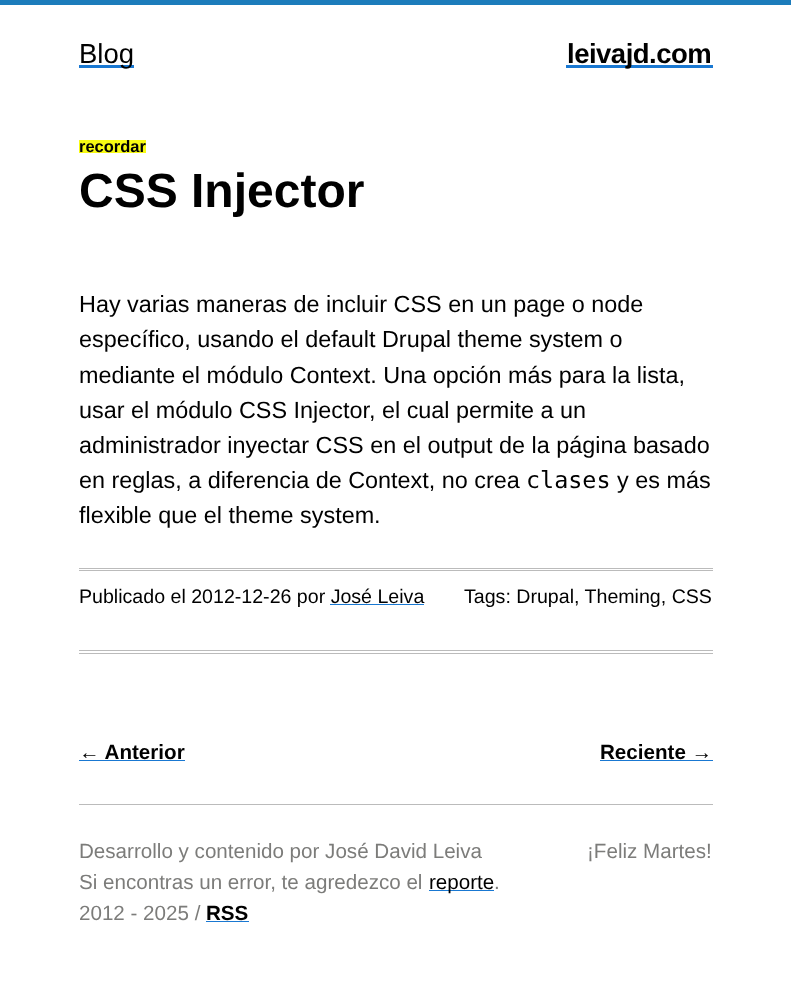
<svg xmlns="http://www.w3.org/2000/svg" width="791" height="995">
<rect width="100%" height="100%" fill="#fff"/>
<rect width="791" height="5" fill="#1c7cbb"/>
<rect x="79" y="65" width="55" height="3" fill="#1978d2"/>
<text x="79" y="63" style="font-family:Liberation Sans;font-size:27.5px;fill:#000">Blog</text>
<rect x="566" y="65" width="147" height="3" fill="#1978d2"/>
<text x="567" y="63" style="font-family:Liberation Sans;font-size:27.5px;font-weight:bold;letter-spacing:-0.5px;fill:#000">leivajd.com</text>
<rect x="79" y="140" width="67" height="13" fill="#f7fa13"/>
<text x="79" y="152" style="font-family:Liberation Sans;font-size:16.5px;font-weight:bold;fill:#000">recordar</text>
<text x="79" y="207" style="font-family:Liberation Sans;font-size:48px;font-weight:bold;fill:#000">CSS Injector</text>
<text x="79" y="312" style="font-family:Liberation Sans;font-size:23.4px;fill:#000">Hay varias maneras de incluir CSS en un page o node</text>
<text x="79" y="347" style="font-family:Liberation Sans;font-size:23.4px;fill:#000">específico, usando el default Drupal theme system o</text>
<text x="79" y="383" style="font-family:Liberation Sans;font-size:23.4px;fill:#000">mediante el módulo Context. Una opción más para la lista,</text>
<text x="79" y="418" style="font-family:Liberation Sans;font-size:23.4px;fill:#000">usar el módulo CSS Injector, el cual permite a un</text>
<text x="79" y="453" style="font-family:Liberation Sans;font-size:23.4px;fill:#000">administrador inyectar CSS en el output de la página basado</text>
<text x="79" y="488" style="font-family:Liberation Sans;font-size:23.4px;fill:#000">en reglas, a diferencia de Context, no crea</text>
<text x="526" y="488" style="font-family:DejaVu Sans Mono;font-size:23.4px;fill:#000">clases</text>
<text x="617" y="488" style="font-family:Liberation Sans;font-size:23.4px;fill:#000">y es más</text>
<text x="79" y="523" style="font-family:Liberation Sans;font-size:23.4px;fill:#000">flexible que el theme system.</text>
<rect x="79" y="568" width="634" height="1" fill="#bbb"/>
<rect x="79" y="570" width="634" height="1" fill="#bbb"/>
<rect x="79" y="650" width="634" height="1" fill="#bbb"/>
<rect x="79" y="653" width="634" height="1" fill="#bbb"/>
<text x="79" y="603" style="font-family:Liberation Sans;font-size:19.6px;fill:#000">Publicado el 2012-12-26 por José Leiva</text>
<rect x="330" y="604" width="94" height="1" fill="#1978d2"/>
<text x="464" y="603" style="font-family:Liberation Sans;font-size:19.6px;fill:#000">Tags: Drupal, Theming, CSS</text>
<text x="79" y="759" style="font-family:Liberation Sans;font-size:20.6px;font-weight:bold;fill:#000">← Anterior</text>
<rect x="79" y="760" width="106" height="1" fill="#1978d2"/>
<text x="600" y="759" style="font-family:Liberation Sans;font-size:20.6px;font-weight:bold;fill:#000">Reciente →</text>
<rect x="600" y="760" width="113" height="1" fill="#1978d2"/>
<rect x="79" y="804" width="634" height="1" fill="#bbb"/>
<text x="79" y="858" style="font-family:Liberation Sans;font-size:20.6px;fill:#7c7c7a">Desarrollo y contenido por José David Leiva</text>
<text x="79" y="889" style="font-family:Liberation Sans;font-size:20.6px;fill:#7c7c7a">Si encontras un error, te agredezco el</text>
<rect x="429" y="890" width="65" height="1" fill="#1978d2"/>
<text x="429" y="889" style="font-family:Liberation Sans;font-size:20.6px;fill:#000">reporte</text>
<text x="494" y="889" style="font-family:Liberation Sans;font-size:20.6px;fill:#7c7c7a">.</text>
<text x="79" y="920" style="font-family:Liberation Sans;font-size:20.6px;fill:#7c7c7a">2012 - 2025 /</text>
<text x="206" y="920" style="font-family:Liberation Sans;font-size:20.6px;font-weight:bold;fill:#000">RSS</text>
<rect x="206" y="921" width="43" height="1" fill="#1978d2"/>
<text x="587" y="858" style="font-family:Liberation Sans;font-size:20.6px;fill:#7c7c7a">¡Feliz Martes!</text>
</svg>
